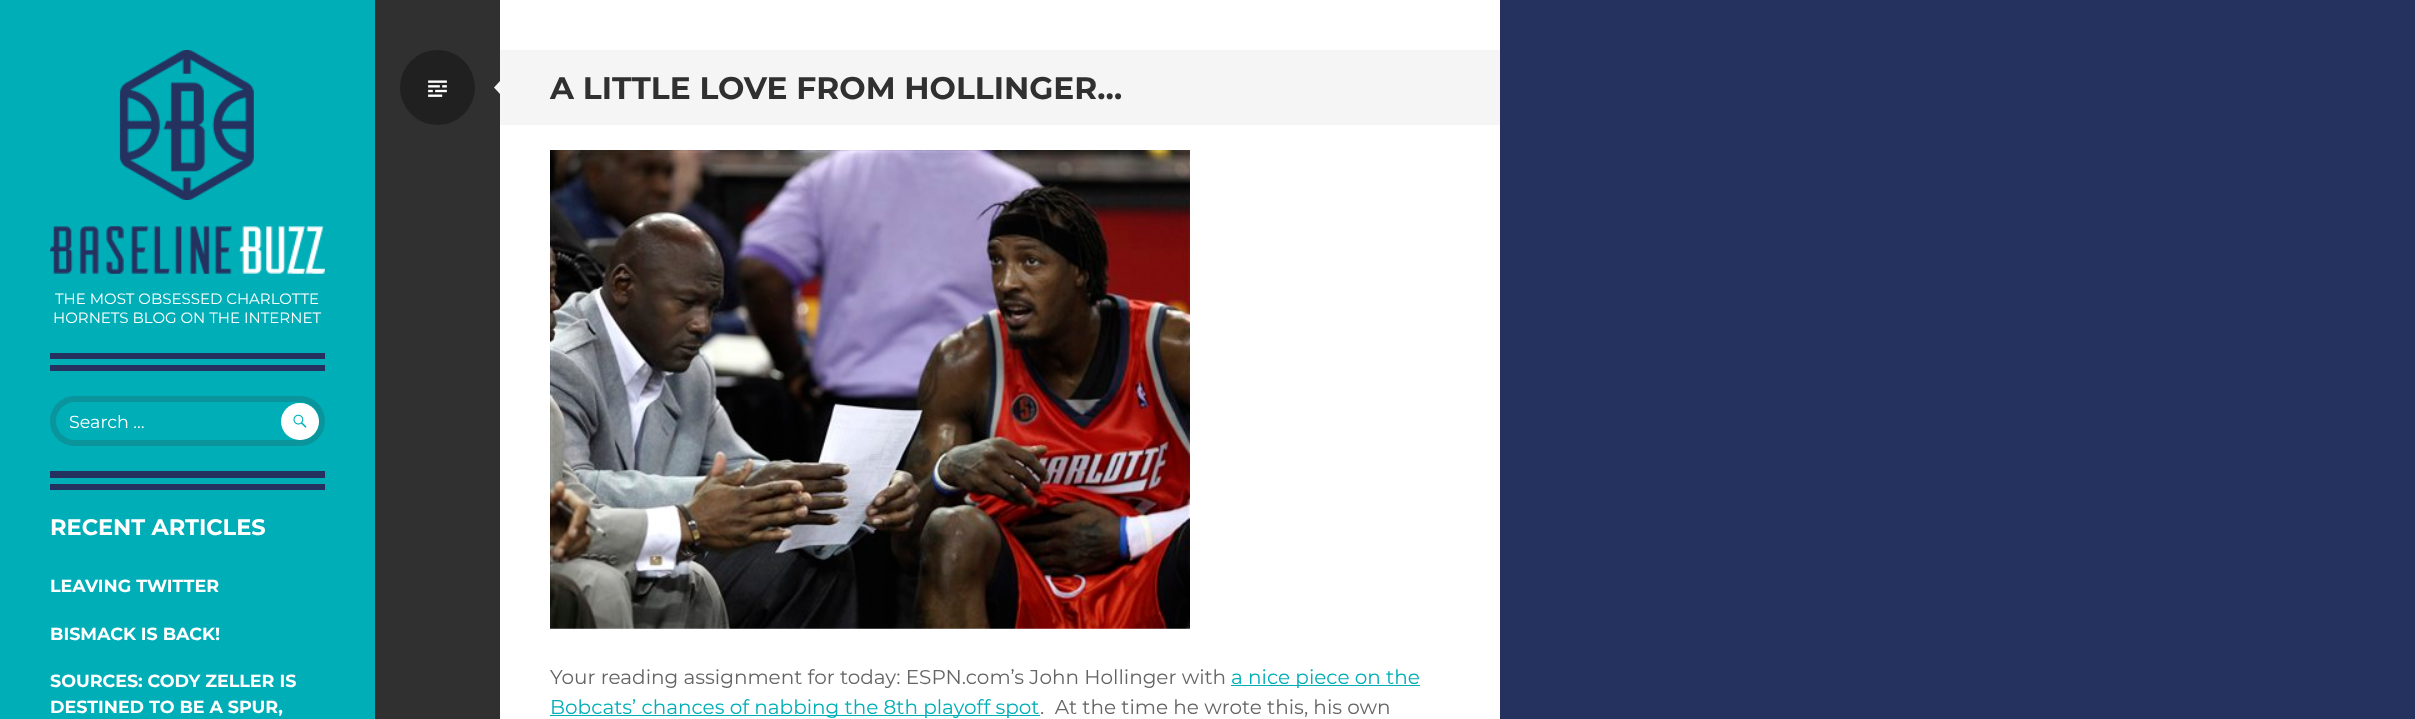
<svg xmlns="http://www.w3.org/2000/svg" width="2415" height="719">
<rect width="100%" height="100%" fill="#25315f"/>
<rect width="375" height="719" fill="#00aeb8"/>
<rect x="375" width="125" height="719" fill="#303030"/>
<rect x="500" width="1000" height="719" fill="#fff"/>
<image x="119" y="50" width="135" height="150" href="media/1.png"/>
<rect x="50" y="353" width="275" height="6" fill="#25315f"/>
<rect x="50" y="365" width="275" height="6" fill="#25315f"/>
<image x="50" y="226" width="275" height="48" href="media/2.png"/>
<text x="55" y="304" style="font-family:Montserrat;font-size:15px;fill:#fff">THE MOST OBSESSED CHARLOTTE</text>
<text x="53" y="323" style="font-family:Montserrat;font-size:15px;fill:#fff">HORNETS BLOG ON THE INTERNET</text>
<rect x="50" y="471" width="275" height="7" fill="#25315f"/>
<rect x="50" y="484" width="275" height="6" fill="#25315f"/>
<rect x="53" y="399" width="269" height="44" rx="22" fill="none" stroke="#0a949c" stroke-width="6"/>
<text x="69" y="428" style="font-family:Montserrat;font-size:17.5px;fill:#fff">Search …</text>
<rect x="281" y="403" width="38" height="37" rx="18.5" fill="#fff"/>
<image x="293" y="414" width="14" height="14" href="media/3.png"/>
<text x="50" y="535" style="font-family:Montserrat;font-size:22.5px;font-weight:bold;fill:#fff">RECENT ARTICLES</text>
<text x="50" y="592" style="font-family:Montserrat;font-size:17.5px;font-weight:bold;fill:#fff">LEAVING TWITTER</text>
<text x="50" y="640" style="font-family:Montserrat;font-size:17.5px;font-weight:bold;fill:#fff">BISMACK IS BACK!</text>
<text x="50" y="687" style="font-family:Montserrat;font-size:17.5px;font-weight:bold;fill:#fff">SOURCES: CODY ZELLER IS</text>
<text x="50" y="713" style="font-family:Montserrat;font-size:17.5px;font-weight:bold;fill:#fff">DESTINED TO BE A SPUR,</text>
<circle cx="437.5" cy="87.5" r="37.5" fill="#202020"/>
<image x="428" y="80" width="19" height="17" href="media/4.png"/>
<rect x="500" y="50" width="1000" height="75" fill="#f5f5f5"/>
<path d="M500 81v13l-6-6.5z" fill="#f5f5f5"/>
<text x="550" y="99" style="font-family:Montserrat;font-size:31.25px;font-weight:bold;fill:#303030">A LITTLE LOVE FROM HOLLINGER…</text>
<image x="550" y="150" width="640" height="479" href="media/5.png"/>
<text x="550" y="684" style="font-family:Montserrat;font-size:20px;fill:#656565">Your reading assignment for today: ESPN.com’s John Hollinger with</text>
<rect x="1231" y="685" width="189" height="1" fill="#00aeb8"/>
<text x="1231" y="684" style="font-family:Montserrat;font-size:20px;fill:#00aeb8">a nice piece on the</text>
<rect x="550" y="715" width="490" height="1" fill="#00aeb8"/>
<text x="550" y="714" style="font-family:Montserrat;font-size:20px;fill:#00aeb8">Bobcats’ chances of nabbing the 8th playoff spot</text>
<text x="1040" y="714" style="font-family:Montserrat;font-size:20px;fill:#656565" xml:space="preserve">.  At the time he wrote this, his own</text>
</svg>
